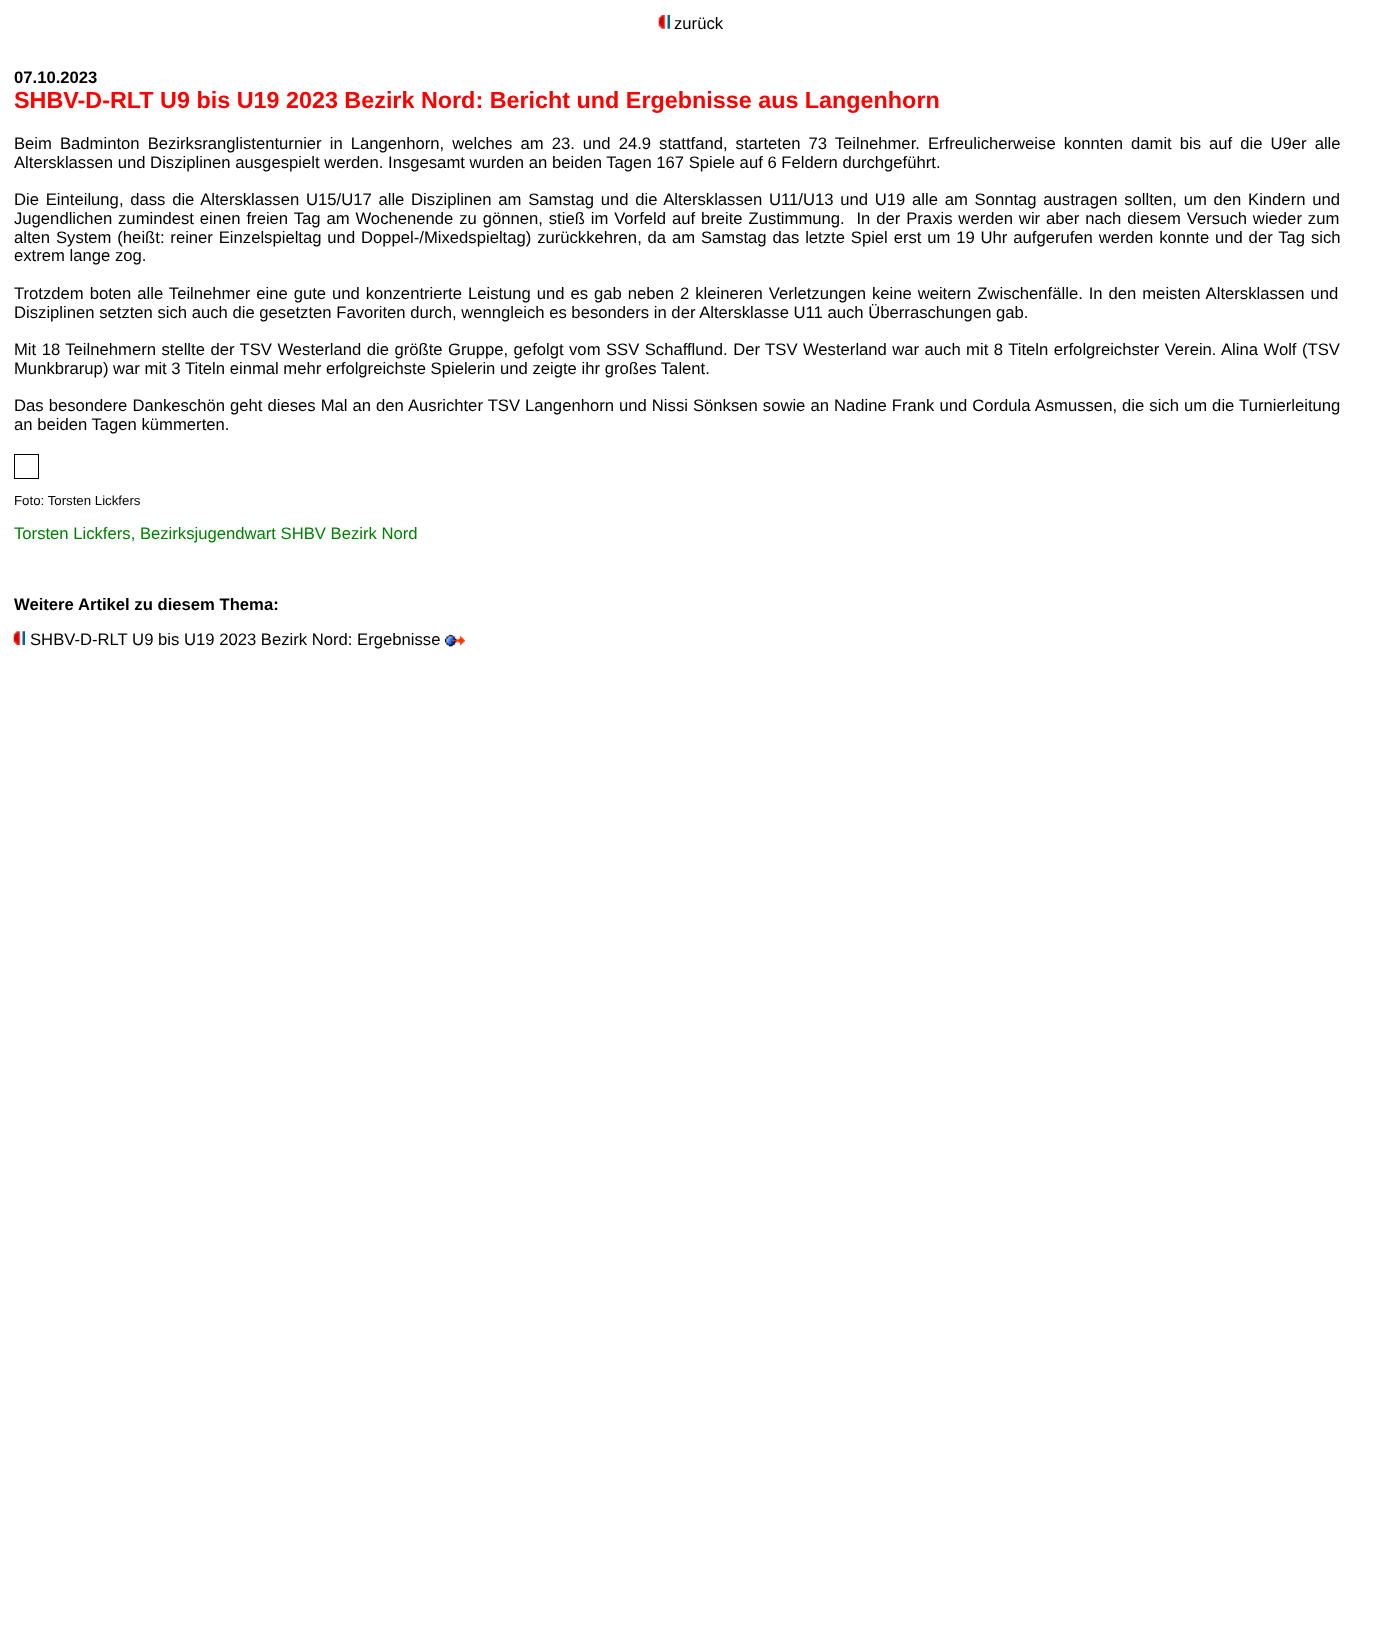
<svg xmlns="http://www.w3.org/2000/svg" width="1381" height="1631">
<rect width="100%" height="100%" fill="#fff"/>
<image x="658" y="15" width="12" height="14" href="media/1.png"/>
<text x="674" y="29" style="font-family:Liberation Sans;font-size:16.67px;fill:#000">zurück</text>
<text x="14" y="83" style="font-family:Liberation Sans;font-size:16.67px;font-weight:bold;fill:#000">07.10.2023</text>
<text x="14" y="108" style="font-family:Liberation Sans;font-size:23.35px;font-weight:bold;fill:#f00">SHBV-D-RLT U9 bis U19 2023 Bezirk Nord: Bericht und Ergebnisse aus Langenhorn</text>
<text x="14" y="149" word-spacing="3.4" style="font-family:Liberation Sans;font-size:16.67px;fill:#000">Beim Badminton Bezirksranglistenturnier in Langenhorn, welches am 23. und 24.9 stattfand, starteten 73 Teilnehmer. Erfreulicherweise konnten damit bis auf die U9er alle</text>
<text x="14" y="168" style="font-family:Liberation Sans;font-size:16.67px;fill:#000">Altersklassen und Disziplinen ausgespielt werden. Insgesamt wurden an beiden Tagen 167 Spiele auf 6 Feldern durchgeführt.</text>
<text x="14" y="205" word-spacing="2.1" style="font-family:Liberation Sans;font-size:16.67px;fill:#000">Die Einteilung, dass die Altersklassen U15/U17 alle Disziplinen am Samstag und die Altersklassen U11/U13 und U19 alle am Sonntag austragen sollten, um den Kindern und</text>
<text x="14" y="224" word-spacing="1.25" style="font-family:Liberation Sans;font-size:16.67px;fill:#000" xml:space="preserve">Jugendlichen zumindest einen freien Tag am Wochenende zu gönnen, stieß im Vorfeld auf breite Zustimmung.  In der Praxis werden wir aber nach diesem Versuch wieder zum</text>
<text x="14" y="243" word-spacing="1.2" style="font-family:Liberation Sans;font-size:16.67px;fill:#000">alten System (heißt: reiner Einzelspieltag und Doppel-/Mixedspieltag) zurückkehren, da am Samstag das letzte Spiel erst um 19 Uhr aufgerufen werden konnte und der Tag sich</text>
<text x="14" y="261" style="font-family:Liberation Sans;font-size:16.67px;fill:#000">extrem lange zog.</text>
<text x="14" y="299" word-spacing="1.3" style="font-family:Liberation Sans;font-size:16.67px;fill:#000">Trotzdem boten alle Teilnehmer eine gute und konzentrierte Leistung und es gab neben 2 kleineren Verletzungen keine weitern Zwischenfälle. In den meisten Altersklassen und</text>
<text x="14" y="318" style="font-family:Liberation Sans;font-size:16.67px;fill:#000">Disziplinen setzten sich auch die gesetzten Favoriten durch, wenngleich es besonders in der Altersklasse U11 auch Überraschungen gab.</text>
<text x="14" y="355" word-spacing="0.8" style="font-family:Liberation Sans;font-size:16.67px;fill:#000">Mit 18 Teilnehmern stellte der TSV Westerland die größte Gruppe, gefolgt vom SSV Schafflund. Der TSV Westerland war auch mit 8 Titeln erfolgreichster Verein. Alina Wolf (TSV</text>
<text x="14" y="374" style="font-family:Liberation Sans;font-size:16.67px;fill:#000">Munkbrarup) war mit 3 Titeln einmal mehr erfolgreichste Spielerin und zeigte ihr großes Talent.</text>
<text x="14" y="411" word-spacing="0.4" style="font-family:Liberation Sans;font-size:16.67px;fill:#000">Das besondere Dankeschön geht dieses Mal an den Ausrichter TSV Langenhorn und Nissi Sönksen sowie an Nadine Frank und Cordula Asmussen, die sich um die Turnierleitung</text>
<text x="14" y="430" style="font-family:Liberation Sans;font-size:16.67px;fill:#000">an beiden Tagen kümmerten.</text>
<rect x="14" y="454" width="25" height="1" fill="#000"/>
<rect x="38" y="454" width="1" height="25" fill="#000"/>
<rect x="14" y="478" width="25" height="1" fill="#000"/>
<rect x="14" y="454" width="1" height="25" fill="#000"/>
<text x="14" y="505" style="font-family:Liberation Sans;font-size:13.25px;fill:#000">Foto: Torsten Lickfers</text>
<text x="14" y="539" style="font-family:Liberation Sans;font-size:16.67px;fill:#008000">Torsten Lickfers, Bezirksjugendwart SHBV Bezirk Nord</text>
<text x="14" y="610" style="font-family:Liberation Sans;font-size:16.67px;font-weight:bold;fill:#000">Weitere Artikel zu diesem Thema:</text>
<image x="13" y="631" width="12" height="14" href="media/2.png"/>
<text x="30" y="645" style="font-family:Liberation Sans;font-size:16.67px;fill:#000">SHBV-D-RLT U9 bis U19 2023 Bezirk Nord: Ergebnisse</text>
<image x="445" y="634" width="20" height="13" href="media/3.png"/>
</svg>
